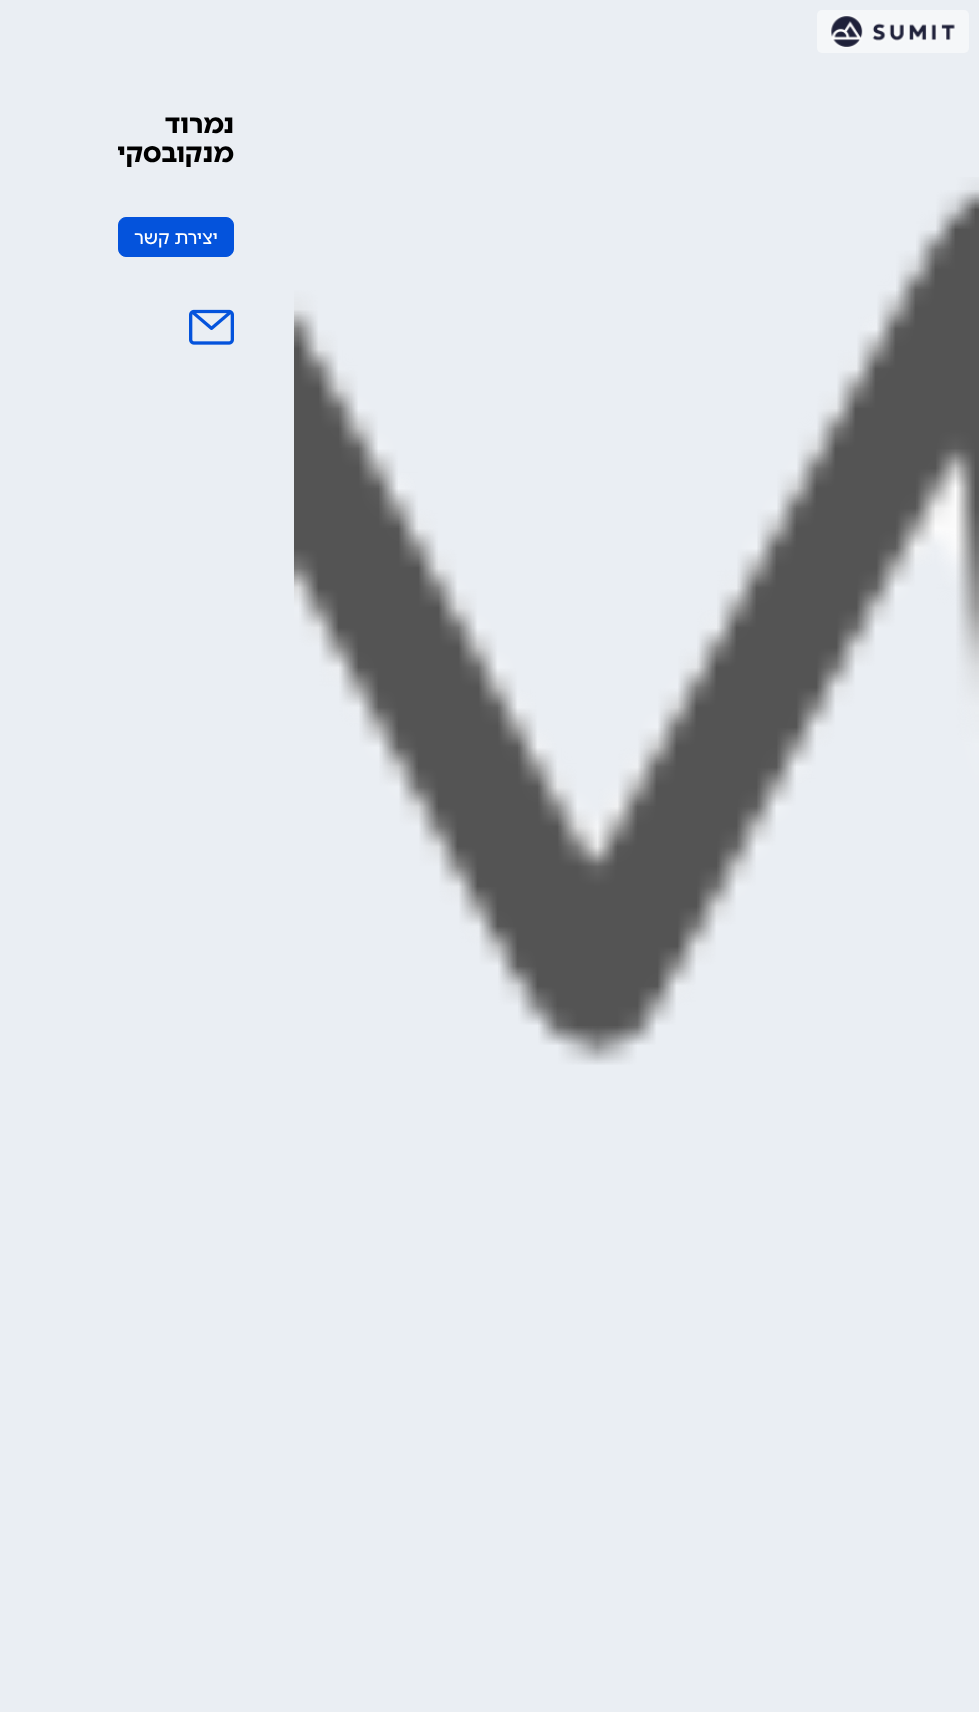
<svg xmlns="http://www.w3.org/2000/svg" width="979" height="1712">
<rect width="100%" height="100%" fill="#eaeef3"/>
<rect x="817" y="10" width="152" height="43" rx="5" fill="#f5f7f9"/>
<image x="830" y="15" width="125" height="33" href="media/1.png"/>
<image x="294" y="177" width="685" height="888" href="media/2.png"/>
<text x="234" y="133" style="font-family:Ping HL;font-size:26px;font-weight:bold;direction:rtl;fill:#000">נמרוד</text>
<text x="234" y="162" style="font-family:Ping HL;font-size:26px;font-weight:bold;direction:rtl;fill:#000">מנקובסקי</text>
<rect x="118.5" y="217.5" width="115" height="39" rx="7.5" fill="#0453dc" stroke="#0453dc"/>
<text x="218" y="244" style="font-family:Ping HL;font-size:18px;font-weight:500;direction:rtl;fill:#fff">יצירת קשר</text>
<image x="189" y="309" width="45" height="36" href="media/3.png"/>
</svg>
